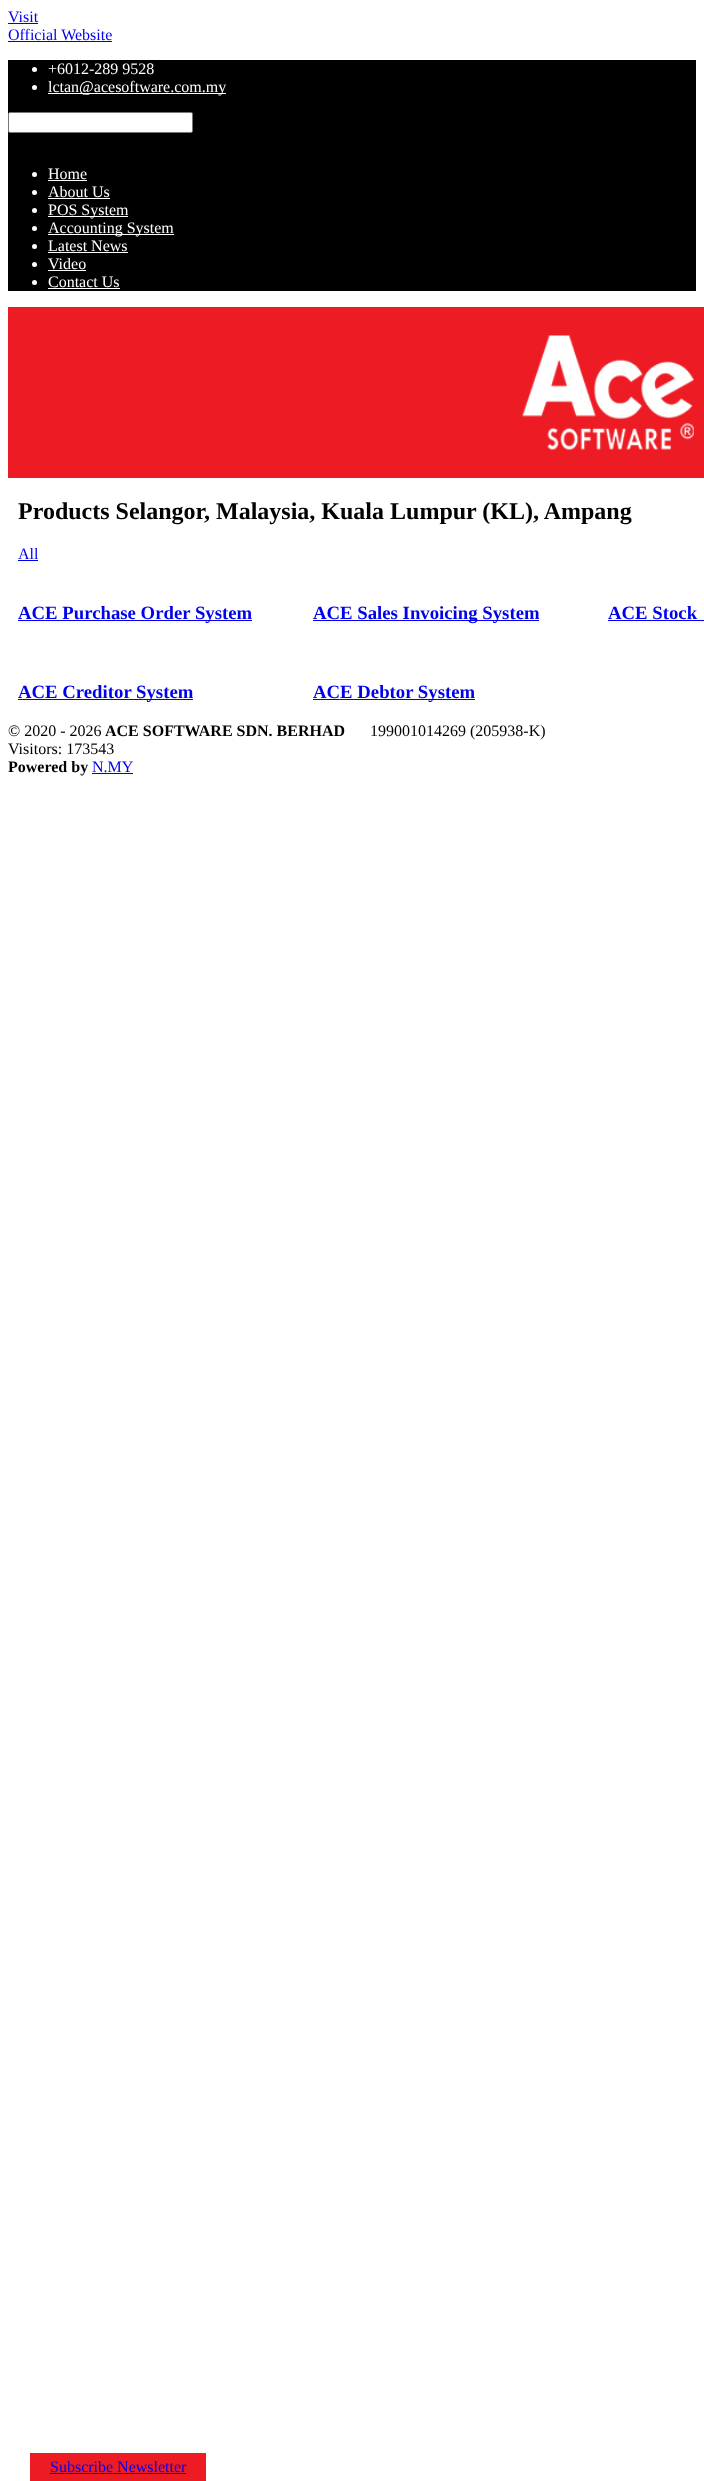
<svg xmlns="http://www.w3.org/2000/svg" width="704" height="2481">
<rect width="100%" height="100%" fill="#fff"/>
<text x="8" y="22" style="font-family:Liberation Serif;font-size:16px;fill:#00e">Visit</text>
<rect x="8" y="23" width="30" height="1" fill="#00e"/>
<text x="8" y="40" style="font-family:Liberation Serif;font-size:16px;fill:#00e">Official Website</text>
<rect x="8" y="41" width="104" height="1" fill="#00e"/>
<rect x="8" y="60" width="688" height="231" fill="#000"/>
<circle cx="34.5" cy="69.5" r="2.5" fill="#fff"/>
<text x="48" y="74" style="font-family:Liberation Serif;font-size:16px;fill:#fff">+6012-289 9528</text>
<circle cx="34.5" cy="87.5" r="2.5" fill="#fff"/>
<rect x="48" y="93" width="178" height="1" fill="#fff"/>
<text x="48" y="92" style="font-family:Liberation Serif;font-size:16px;fill:#fff">lctan@acesoftware.com.my</text>
<rect x="8.5" y="112.5" width="184" height="20" rx="1.5" fill="#fff" stroke="#767676"/>
<circle cx="34.5" cy="174.5" r="2.5" fill="#fff"/>
<text x="48" y="179" style="font-family:Liberation Serif;font-size:16px;fill:#fff">Home</text>
<rect x="48" y="180" width="39" height="1" fill="#fff"/>
<circle cx="34.5" cy="192.5" r="2.5" fill="#fff"/>
<text x="48" y="197" style="font-family:Liberation Serif;font-size:16px;fill:#fff">About Us</text>
<rect x="48" y="198" width="62" height="1" fill="#fff"/>
<circle cx="34.5" cy="210.5" r="2.5" fill="#fff"/>
<rect x="48" y="216" width="80" height="1" fill="#fff"/>
<text x="48" y="215" style="font-family:Liberation Serif;font-size:16px;fill:#fff">POS System</text>
<circle cx="34.5" cy="228.5" r="2.5" fill="#fff"/>
<rect x="48" y="234" width="126" height="1" fill="#fff"/>
<text x="48" y="233" style="font-family:Liberation Serif;font-size:16px;fill:#fff">Accounting System</text>
<circle cx="34.5" cy="246.5" r="2.5" fill="#fff"/>
<text x="48" y="251" style="font-family:Liberation Serif;font-size:16px;fill:#fff">Latest News</text>
<rect x="48" y="252" width="80" height="1" fill="#fff"/>
<circle cx="34.5" cy="264.5" r="2.5" fill="#fff"/>
<text x="48" y="269" style="font-family:Liberation Serif;font-size:16px;fill:#fff">Video</text>
<rect x="48" y="270" width="38" height="1" fill="#fff"/>
<circle cx="34.5" cy="282.5" r="2.5" fill="#fff"/>
<text x="48" y="287" style="font-family:Liberation Serif;font-size:16px;fill:#fff">Contact Us</text>
<rect x="48" y="288" width="72" height="1" fill="#fff"/>
<image x="8" y="307" width="696" height="171" href="media/1.png"/>
<text x="18" y="519" style="font-family:Liberation Serif;font-size:24px;font-weight:bold;fill:#000">Products Selangor, Malaysia, Kuala Lumpur (KL), Ampang</text>
<text x="18" y="559" style="font-family:Liberation Serif;font-size:16px;fill:#00e">All</text>
<rect x="18" y="560" width="20" height="1" fill="#00e"/>
<rect x="18" y="620" width="234" height="1" fill="#00e"/>
<text x="18" y="619" style="font-family:Liberation Serif;font-size:18.75px;font-weight:bold;fill:#00e">ACE Purchase Order System</text>
<rect x="313" y="620" width="226" height="1" fill="#00e"/>
<text x="313" y="619" style="font-family:Liberation Serif;font-size:18.75px;font-weight:bold;fill:#00e">ACE Sales Invoicing System</text>
<text x="608" y="619" style="font-family:Liberation Serif;font-size:18.75px;font-weight:bold;fill:#00e">ACE Stock</text>
<rect x="608" y="620" width="96" height="1" fill="#00e"/>
<rect x="18" y="699" width="175" height="1" fill="#00e"/>
<text x="18" y="698" style="font-family:Liberation Serif;font-size:18.75px;font-weight:bold;fill:#00e">ACE Creditor System</text>
<rect x="313" y="699" width="162" height="1" fill="#00e"/>
<text x="313" y="698" style="font-family:Liberation Serif;font-size:18.75px;font-weight:bold;fill:#00e">ACE Debtor System</text>
<text x="8" y="736" style="font-family:Liberation Serif;font-size:16px;fill:#000">© 2020 - 2026</text>
<text x="105" y="736" style="font-family:Liberation Serif;font-size:16px;font-weight:bold;fill:#000">ACE SOFTWARE SDN. BERHAD</text>
<text x="370" y="736" style="font-family:Liberation Serif;font-size:16px;fill:#000">199001014269 (205938-K)</text>
<text x="8" y="754" style="font-family:Liberation Serif;font-size:16px;fill:#000">Visitors: 173543</text>
<text x="8" y="772" style="font-family:Liberation Serif;font-size:16px;font-weight:bold;fill:#000">Powered by</text>
<text x="92" y="772" style="font-family:Liberation Serif;font-size:16px;fill:#00e">N.MY</text>
<rect x="92" y="773" width="41" height="1" fill="#00e"/>
<rect x="30" y="2453" width="176" height="28" fill="#ed1c24"/>
<text x="50" y="2472" style="font-family:Liberation Serif;font-size:16px;fill:#00e">Subscribe Newsletter</text>
<rect x="50" y="2473" width="136" height="1" fill="#00e"/>
</svg>
